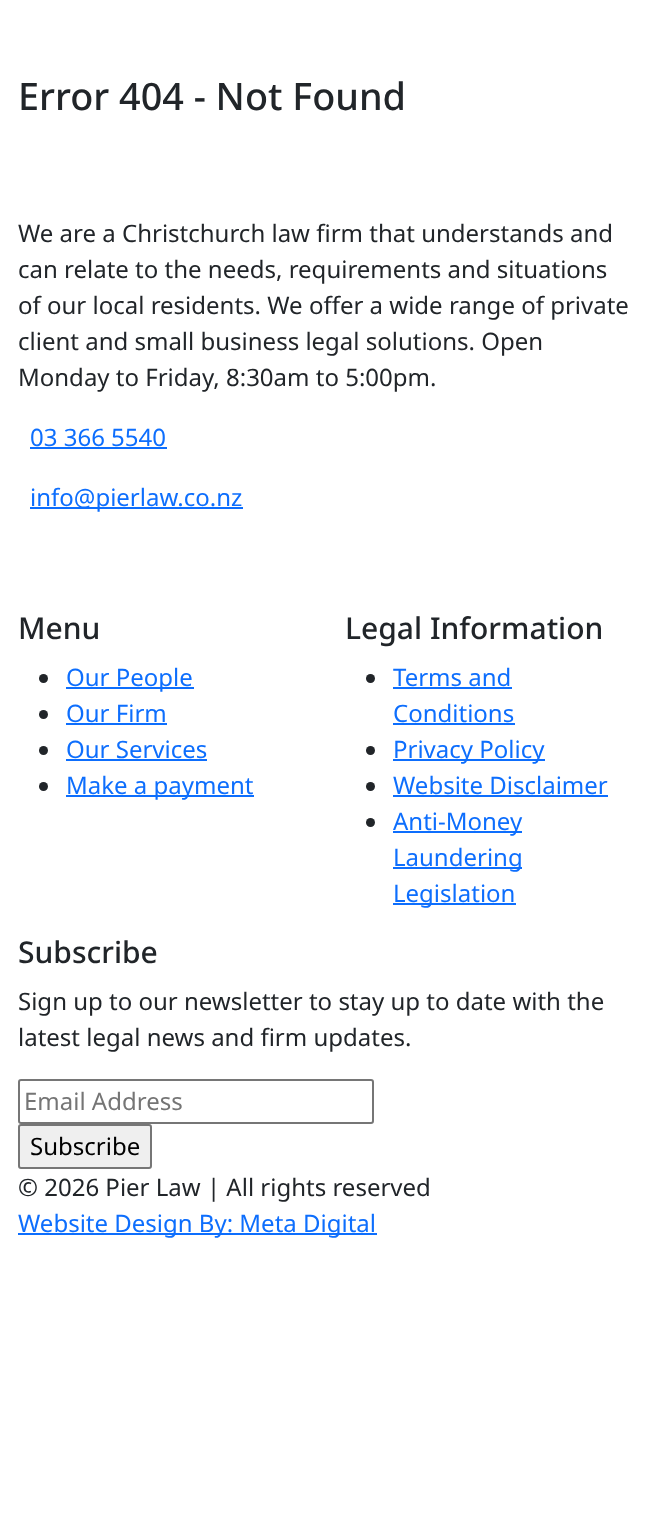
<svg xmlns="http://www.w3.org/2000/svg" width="654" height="1519">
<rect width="100%" height="100%" fill="#fff"/>
<text x="18" y="110" style="font-family:Noto Sans;font-size:37.75px;font-weight:500;fill:#212529">Error 404 - Not Found</text>
<text x="18" y="242" style="font-family:Noto Sans;font-size:24px;fill:#212529">We are a Christchurch law firm that understands and</text>
<text x="18" y="278" style="font-family:Noto Sans;font-size:24px;fill:#212529">can relate to the needs, requirements and situations</text>
<text x="18" y="314" style="font-family:Noto Sans;font-size:24px;fill:#212529">of our local residents. We offer a wide range of private</text>
<text x="18" y="350" style="font-family:Noto Sans;font-size:24px;fill:#212529">client and small business legal solutions. Open</text>
<text x="18" y="386" style="font-family:Noto Sans;font-size:24px;fill:#212529">Monday to Friday, 8:30am to 5:00pm.</text>
<text x="30" y="446" style="font-family:Noto Sans;font-size:24px;fill:#0d6efd">03 366 5540</text>
<rect x="30" y="447" width="137" height="2" fill="#0d6efd"/>
<rect x="30" y="507" width="213" height="2" fill="#0d6efd"/>
<text x="30" y="506" style="font-family:Noto Sans;font-size:24px;fill:#0d6efd">info@pierlaw.co.nz</text>
<text x="18" y="639" style="font-family:Noto Sans;font-size:30px;font-weight:500;fill:#212529">Menu</text>
<circle cx="43.5" cy="678.5" r="4.5" fill="#212529"/>
<rect x="66" y="687" width="128" height="2" fill="#0d6efd"/>
<text x="66" y="686" style="font-family:Noto Sans;font-size:24px;fill:#0d6efd">Our People</text>
<circle cx="43.5" cy="714.5" r="4.5" fill="#212529"/>
<text x="66" y="722" style="font-family:Noto Sans;font-size:24px;fill:#0d6efd">Our Firm</text>
<rect x="66" y="723" width="101" height="2" fill="#0d6efd"/>
<circle cx="43.5" cy="750.5" r="4.5" fill="#212529"/>
<text x="66" y="758" style="font-family:Noto Sans;font-size:24px;fill:#0d6efd">Our Services</text>
<rect x="66" y="759" width="141" height="2" fill="#0d6efd"/>
<circle cx="43.5" cy="786.5" r="4.5" fill="#212529"/>
<rect x="66" y="795" width="188" height="2" fill="#0d6efd"/>
<text x="66" y="794" style="font-family:Noto Sans;font-size:24px;fill:#0d6efd">Make a payment</text>
<text x="345" y="639" style="font-family:Noto Sans;font-size:30px;font-weight:500;fill:#212529">Legal Information</text>
<circle cx="370.5" cy="678.5" r="4.5" fill="#212529"/>
<text x="393" y="686" style="font-family:Noto Sans;font-size:24px;fill:#0d6efd">Terms and</text>
<rect x="393" y="687" width="119" height="2" fill="#0d6efd"/>
<text x="393" y="722" style="font-family:Noto Sans;font-size:24px;fill:#0d6efd">Conditions</text>
<rect x="393" y="723" width="122" height="2" fill="#0d6efd"/>
<circle cx="370.5" cy="750.5" r="4.5" fill="#212529"/>
<rect x="393" y="759" width="152" height="2" fill="#0d6efd"/>
<text x="393" y="758" style="font-family:Noto Sans;font-size:24px;fill:#0d6efd">Privacy Policy</text>
<circle cx="370.5" cy="786.5" r="4.5" fill="#212529"/>
<text x="393" y="794" style="font-family:Noto Sans;font-size:24px;fill:#0d6efd">Website Disclaimer</text>
<rect x="393" y="795" width="215" height="2" fill="#0d6efd"/>
<circle cx="370.5" cy="822.5" r="4.5" fill="#212529"/>
<rect x="393" y="831" width="129" height="2" fill="#0d6efd"/>
<text x="393" y="830" style="font-family:Noto Sans;font-size:24px;fill:#0d6efd">Anti-Money</text>
<rect x="393" y="867" width="129" height="2" fill="#0d6efd"/>
<text x="393" y="866" style="font-family:Noto Sans;font-size:24px;fill:#0d6efd">Laundering</text>
<rect x="393" y="903" width="123" height="2" fill="#0d6efd"/>
<text x="393" y="902" style="font-family:Noto Sans;font-size:24px;fill:#0d6efd">Legislation</text>
<text x="18" y="963" style="font-family:Noto Sans;font-size:30px;font-weight:500;fill:#212529">Subscribe</text>
<text x="18" y="1010" style="font-family:Noto Sans;font-size:24px;fill:#212529">Sign up to our newsletter to stay up to date with the</text>
<text x="18" y="1046" style="font-family:Noto Sans;font-size:24px;fill:#212529">latest legal news and firm updates.</text>
<rect x="19" y="1080" width="354" height="43" rx="2" fill="none" stroke="#767676" stroke-width="2"/>
<text x="24" y="1110" style="font-family:Noto Sans;font-size:24px;fill:#757575">Email Address</text>
<rect x="19" y="1125" width="132" height="43" rx="2" fill="#efefef" stroke="#767676" stroke-width="2"/>
<text x="30" y="1155" style="font-family:Noto Sans;font-size:24px;fill:#000">Subscribe</text>
<text x="18" y="1196" style="font-family:Noto Sans;font-size:24px;fill:#212529">© 2026 Pier Law | All rights reserved</text>
<rect x="18" y="1233" width="359" height="2" fill="#0d6efd"/>
<text x="18" y="1232" style="font-family:Noto Sans;font-size:24px;fill:#0d6efd">Website Design By: Meta Digital</text>
</svg>
